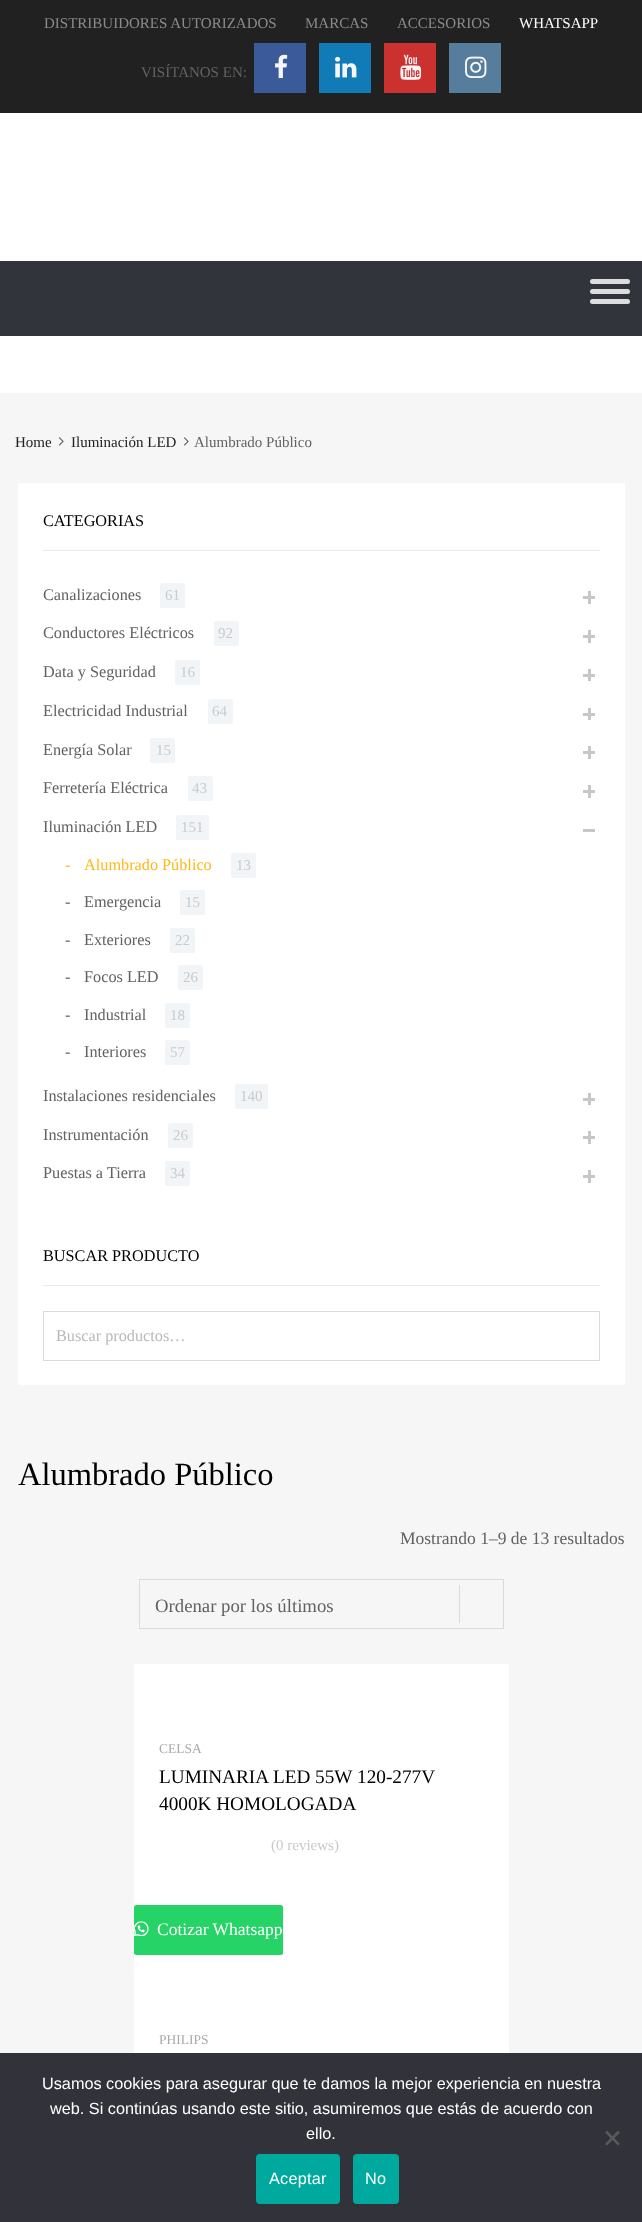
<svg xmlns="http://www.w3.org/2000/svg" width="642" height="2222">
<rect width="100%" height="100%" fill="#f6f6f6"/>
<rect y="113" width="642" height="280" fill="#fff"/>
<rect width="642" height="113" fill="#212121"/>
<text x="44" y="28" style="font-family:Liberation Serif;font-size:15px;fill:#8b8b8b">DISTRIBUIDORES AUTORIZADOS</text>
<text x="305" y="28" style="font-family:Liberation Serif;font-size:15px;fill:#8b8b8b">MARCAS</text>
<text x="397" y="28" style="font-family:Liberation Serif;font-size:15px;fill:#8b8b8b">ACCESORIOS</text>
<text x="519" y="28" style="font-family:Liberation Serif;font-size:15px;fill:#fff">WHATSAPP</text>
<text x="141" y="77" style="font-family:Liberation Serif;font-size:15px;fill:#626262">VISÍTANOS EN:</text>
<rect x="254" y="43" width="52" height="50" fill="#3b5a9a"/>
<image x="275" y="54" width="13" height="25" href="media/1.png"/>
<rect x="319" y="43" width="52" height="50" fill="#117bb7"/>
<image x="335" y="56" width="22" height="22" href="media/2.png"/>
<rect x="384" y="43" width="52" height="50" fill="#cb312f"/>
<image x="400" y="54" width="22" height="26" href="media/3.png"/>
<rect x="449" y="43" width="52" height="50" fill="#567d9c"/>
<image x="465" y="56" width="22" height="22" href="media/4.png"/>
<rect y="261" width="642" height="75" fill="#31353b"/>
<rect x="590" y="279" width="40" height="5" rx="2.5" fill="#ddd"/>
<rect x="590" y="289" width="40" height="5" rx="2.5" fill="#ddd"/>
<rect x="590" y="299" width="40" height="5" rx="2.5" fill="#ddd"/>
<text x="15" y="447" style="font-family:Liberation Serif;font-size:15px;fill:#212121">Home</text>
<image x="58" y="437" width="6" height="9" href="media/5.png"/>
<text x="71" y="447" style="font-family:Liberation Serif;font-size:15px;fill:#212121">Iluminación LED</text>
<image x="183" y="437" width="6" height="9" href="media/5.png"/>
<text x="194" y="447" style="font-family:Liberation Serif;font-size:15px;fill:#626262">Alumbrado Público</text>
<rect x="18" y="483" width="607" height="902" fill="#fff"/>
<rect x="43" y="550" width="557" height="1" fill="#ebebeb"/>
<text x="43" y="526" style="font-family:Liberation Serif;font-size:16.25px;fill:#000">CATEGORIAS</text>
<text x="43" y="600" style="font-family:Liberation Serif;font-size:16.25px;fill:#626262">Canalizaciones</text>
<rect x="160" y="583" width="25" height="25" rx="2.5" fill="#f1f5f7"/>
<text x="165" y="600" style="font-family:Liberation Serif;font-size:15px;fill:#cacaca">61</text>
<rect x="583" y="596" width="12" height="3" fill="#c7c7c7"/>
<rect x="588" y="591" width="3" height="13" fill="#c7c7c7"/>
<text x="43" y="638" style="font-family:Liberation Serif;font-size:16.25px;fill:#626262">Conductores Eléctricos</text>
<rect x="214" y="621" width="25" height="25" rx="2.5" fill="#f1f5f7"/>
<text x="218" y="638" style="font-family:Liberation Serif;font-size:15px;fill:#cacaca">92</text>
<rect x="583" y="635" width="12" height="3" fill="#c7c7c7"/>
<rect x="588" y="630" width="3" height="13" fill="#c7c7c7"/>
<text x="43" y="677" style="font-family:Liberation Serif;font-size:16.25px;fill:#626262">Data y Seguridad</text>
<rect x="175" y="660" width="25" height="25" rx="2.5" fill="#f1f5f7"/>
<text x="180" y="677" style="font-family:Liberation Serif;font-size:15px;fill:#cacaca">16</text>
<rect x="583" y="674" width="12" height="3" fill="#c7c7c7"/>
<rect x="588" y="669" width="3" height="12" fill="#c7c7c7"/>
<text x="43" y="716" style="font-family:Liberation Serif;font-size:16.25px;fill:#626262">Electricidad Industrial</text>
<rect x="208" y="699" width="25" height="25" rx="2.5" fill="#f1f5f7"/>
<text x="212" y="716" style="font-family:Liberation Serif;font-size:15px;fill:#cacaca">64</text>
<rect x="583" y="713" width="12" height="3" fill="#c7c7c7"/>
<rect x="588" y="708" width="3" height="12" fill="#c7c7c7"/>
<text x="43" y="755" style="font-family:Liberation Serif;font-size:16.25px;fill:#626262">Energía Solar</text>
<rect x="150" y="738" width="25" height="25" rx="2.5" fill="#f1f5f7"/>
<text x="156" y="755" style="font-family:Liberation Serif;font-size:15px;fill:#cacaca">15</text>
<rect x="583" y="751" width="12" height="3" fill="#c7c7c7"/>
<rect x="588" y="746" width="3" height="13" fill="#c7c7c7"/>
<text x="43" y="793" style="font-family:Liberation Serif;font-size:16.25px;fill:#626262">Ferretería Eléctrica</text>
<rect x="188" y="776" width="25" height="25" rx="2.5" fill="#f1f5f7"/>
<text x="192" y="793" style="font-family:Liberation Serif;font-size:15px;fill:#cacaca">43</text>
<rect x="583" y="790" width="12" height="3" fill="#c7c7c7"/>
<rect x="588" y="785" width="3" height="13" fill="#c7c7c7"/>
<text x="43" y="832" style="font-family:Liberation Serif;font-size:16.25px;fill:#626262">Iluminación LED</text>
<rect x="176" y="815" width="33" height="25" rx="2.5" fill="#f1f5f7"/>
<text x="181" y="832" style="font-family:Liberation Serif;font-size:15px;fill:#cacaca">151</text>
<rect x="583" y="829" width="12" height="3" fill="#c7c7c7"/>
<text x="65" y="870" style="font-family:Liberation Serif;font-size:16.25px;fill:#fdb819">-</text>
<text x="84" y="870" style="font-family:Liberation Serif;font-size:16.25px;fill:#fdb819">Alumbrado Público</text>
<rect x="231" y="853" width="25" height="25" rx="2.5" fill="#f1f5f7"/>
<text x="236" y="870" style="font-family:Liberation Serif;font-size:15px;fill:#cacaca">13</text>
<text x="65" y="907" style="font-family:Liberation Serif;font-size:16.25px;fill:#626262">-</text>
<text x="84" y="907" style="font-family:Liberation Serif;font-size:16.25px;fill:#626262">Emergencia</text>
<rect x="180" y="890" width="25" height="25" rx="2.5" fill="#f1f5f7"/>
<text x="185" y="907" style="font-family:Liberation Serif;font-size:15px;fill:#cacaca">15</text>
<text x="65" y="945" style="font-family:Liberation Serif;font-size:16.25px;fill:#626262">-</text>
<text x="84" y="945" style="font-family:Liberation Serif;font-size:16.25px;fill:#626262">Exteriores</text>
<rect x="170" y="928" width="25" height="25" rx="2.5" fill="#f1f5f7"/>
<text x="175" y="945" style="font-family:Liberation Serif;font-size:15px;fill:#cacaca">22</text>
<text x="65" y="982" style="font-family:Liberation Serif;font-size:16.25px;fill:#626262">-</text>
<text x="84" y="982" style="font-family:Liberation Serif;font-size:16.25px;fill:#626262">Focos LED</text>
<rect x="178" y="965" width="25" height="25" rx="2.5" fill="#f1f5f7"/>
<text x="183" y="982" style="font-family:Liberation Serif;font-size:15px;fill:#cacaca">26</text>
<text x="65" y="1020" style="font-family:Liberation Serif;font-size:16.25px;fill:#626262">-</text>
<text x="84" y="1020" style="font-family:Liberation Serif;font-size:16.25px;fill:#626262">Industrial</text>
<rect x="165" y="1003" width="25" height="25" rx="2.5" fill="#f1f5f7"/>
<text x="170" y="1020" style="font-family:Liberation Serif;font-size:15px;fill:#cacaca">18</text>
<text x="65" y="1057" style="font-family:Liberation Serif;font-size:16.25px;fill:#626262">-</text>
<text x="84" y="1057" style="font-family:Liberation Serif;font-size:16.25px;fill:#626262">Interiores</text>
<rect x="165" y="1040" width="25" height="25" rx="2.5" fill="#f1f5f7"/>
<text x="170" y="1057" style="font-family:Liberation Serif;font-size:15px;fill:#cacaca">57</text>
<text x="43" y="1101" style="font-family:Liberation Serif;font-size:16.25px;fill:#626262">Instalaciones residenciales</text>
<rect x="235" y="1084" width="33" height="25" rx="2.5" fill="#f1f5f7"/>
<text x="240" y="1101" style="font-family:Liberation Serif;font-size:15px;fill:#cacaca">140</text>
<rect x="583" y="1098" width="12" height="3" fill="#c7c7c7"/>
<rect x="588" y="1093" width="3" height="12" fill="#c7c7c7"/>
<text x="43" y="1140" style="font-family:Liberation Serif;font-size:16.25px;fill:#626262">Instrumentación</text>
<rect x="168" y="1123" width="25" height="25" rx="2.5" fill="#f1f5f7"/>
<text x="173" y="1140" style="font-family:Liberation Serif;font-size:15px;fill:#cacaca">26</text>
<rect x="583" y="1136" width="12" height="3" fill="#c7c7c7"/>
<rect x="588" y="1131" width="3" height="13" fill="#c7c7c7"/>
<text x="43" y="1178" style="font-family:Liberation Serif;font-size:16.25px;fill:#626262">Puestas a Tierra</text>
<rect x="165" y="1161" width="25" height="25" rx="2.5" fill="#f1f5f7"/>
<text x="170" y="1178" style="font-family:Liberation Serif;font-size:15px;fill:#cacaca">34</text>
<rect x="583" y="1175" width="12" height="3" fill="#c7c7c7"/>
<rect x="588" y="1170" width="3" height="13" fill="#c7c7c7"/>
<rect x="43" y="1285" width="557" height="1" fill="#ebebeb"/>
<text x="43" y="1261" style="font-family:Liberation Serif;font-size:16.25px;fill:#000">BUSCAR PRODUCTO</text>
<rect x="43.5" y="1311.5" width="556" height="49" fill="none" stroke="#dbdbdb"/>
<text x="56" y="1341" style="font-family:Liberation Serif;font-size:16.25px;fill:#b9b9b9">Buscar productos…</text>
<text x="18" y="1485" style="font-family:Liberation Serif;font-size:32.5px;fill:#000">Alumbrado Público</text>
<text x="400" y="1544" style="font-family:Liberation Serif;font-size:17.5px;fill:#626262">Mostrando 1–9 de 13 resultados</text>
<rect x="459" y="1585" width="1" height="38" fill="#dbdbdb"/>
<rect x="139.5" y="1579.5" width="364" height="49" fill="none" stroke="#dbdbdb"/>
<text x="155" y="1612" style="font-family:Liberation Serif;font-size:18.75px;fill:#626262">Ordenar por los últimos</text>
<rect x="134" y="1664" width="375" height="389" fill="#fff"/>
<text x="159" y="1753" style="font-family:Liberation Serif;font-size:13.5px;fill:#a9a9a9">CELSA</text>
<text x="159" y="1783" style="font-family:Liberation Serif;font-size:19.25px;fill:#000">LUMINARIA LED 55W 120-277V</text>
<text x="159" y="1810" style="font-family:Liberation Serif;font-size:19.25px;fill:#000">4000K HOMOLOGADA</text>
<text x="271" y="1850" style="font-family:Liberation Serif;font-size:15px;fill:#cacaca">(0 reviews)</text>
<rect x="134" y="1905" width="149" height="50" rx="2.5" fill="#25d366"/>
<image x="134" y="1921" width="15" height="15" href="media/6.png"/>
<text x="157" y="1935" style="font-family:Liberation Serif;font-size:17.5px;fill:#fff">Cotizar Whatsapp</text>
<text x="159" y="2044" style="font-family:Liberation Serif;font-size:13.5px;fill:#a9a9a9">PHILIPS</text>
<rect y="2053" width="642" height="169" fill="#32323a"/>
<text x="42" y="2089" style="font-family:Liberation Sans;font-size:16.25px;fill:#fff">Usamos cookies para asegurar que te damos la mejor experiencia en nuestra</text>
<text x="50" y="2114" style="font-family:Liberation Sans;font-size:16.25px;fill:#fff">web. Si continúas usando este sitio, asumiremos que estás de acuerdo con</text>
<text x="306" y="2139" style="font-family:Liberation Sans;font-size:16.25px;fill:#fff">ello.</text>
<path d="M618 2130.5l2 2l-13 13l-2-1.5z" fill="#59595d"/>
<path d="M605 2132.5l2-2l13 13.5l-2 1.5z" fill="#59595d"/>
<rect x="256" y="2154" width="84" height="50" rx="4" fill="#00a99d"/>
<text x="269" y="2184" style="font-family:Liberation Sans;font-size:16.25px;letter-spacing:0.25px;fill:#fff">Aceptar</text>
<rect x="353" y="2154" width="46" height="50" rx="4" fill="#00a99d"/>
<text x="365" y="2184" style="font-family:Liberation Sans;font-size:16.25px;letter-spacing:0.25px;fill:#fff">No</text>
</svg>
